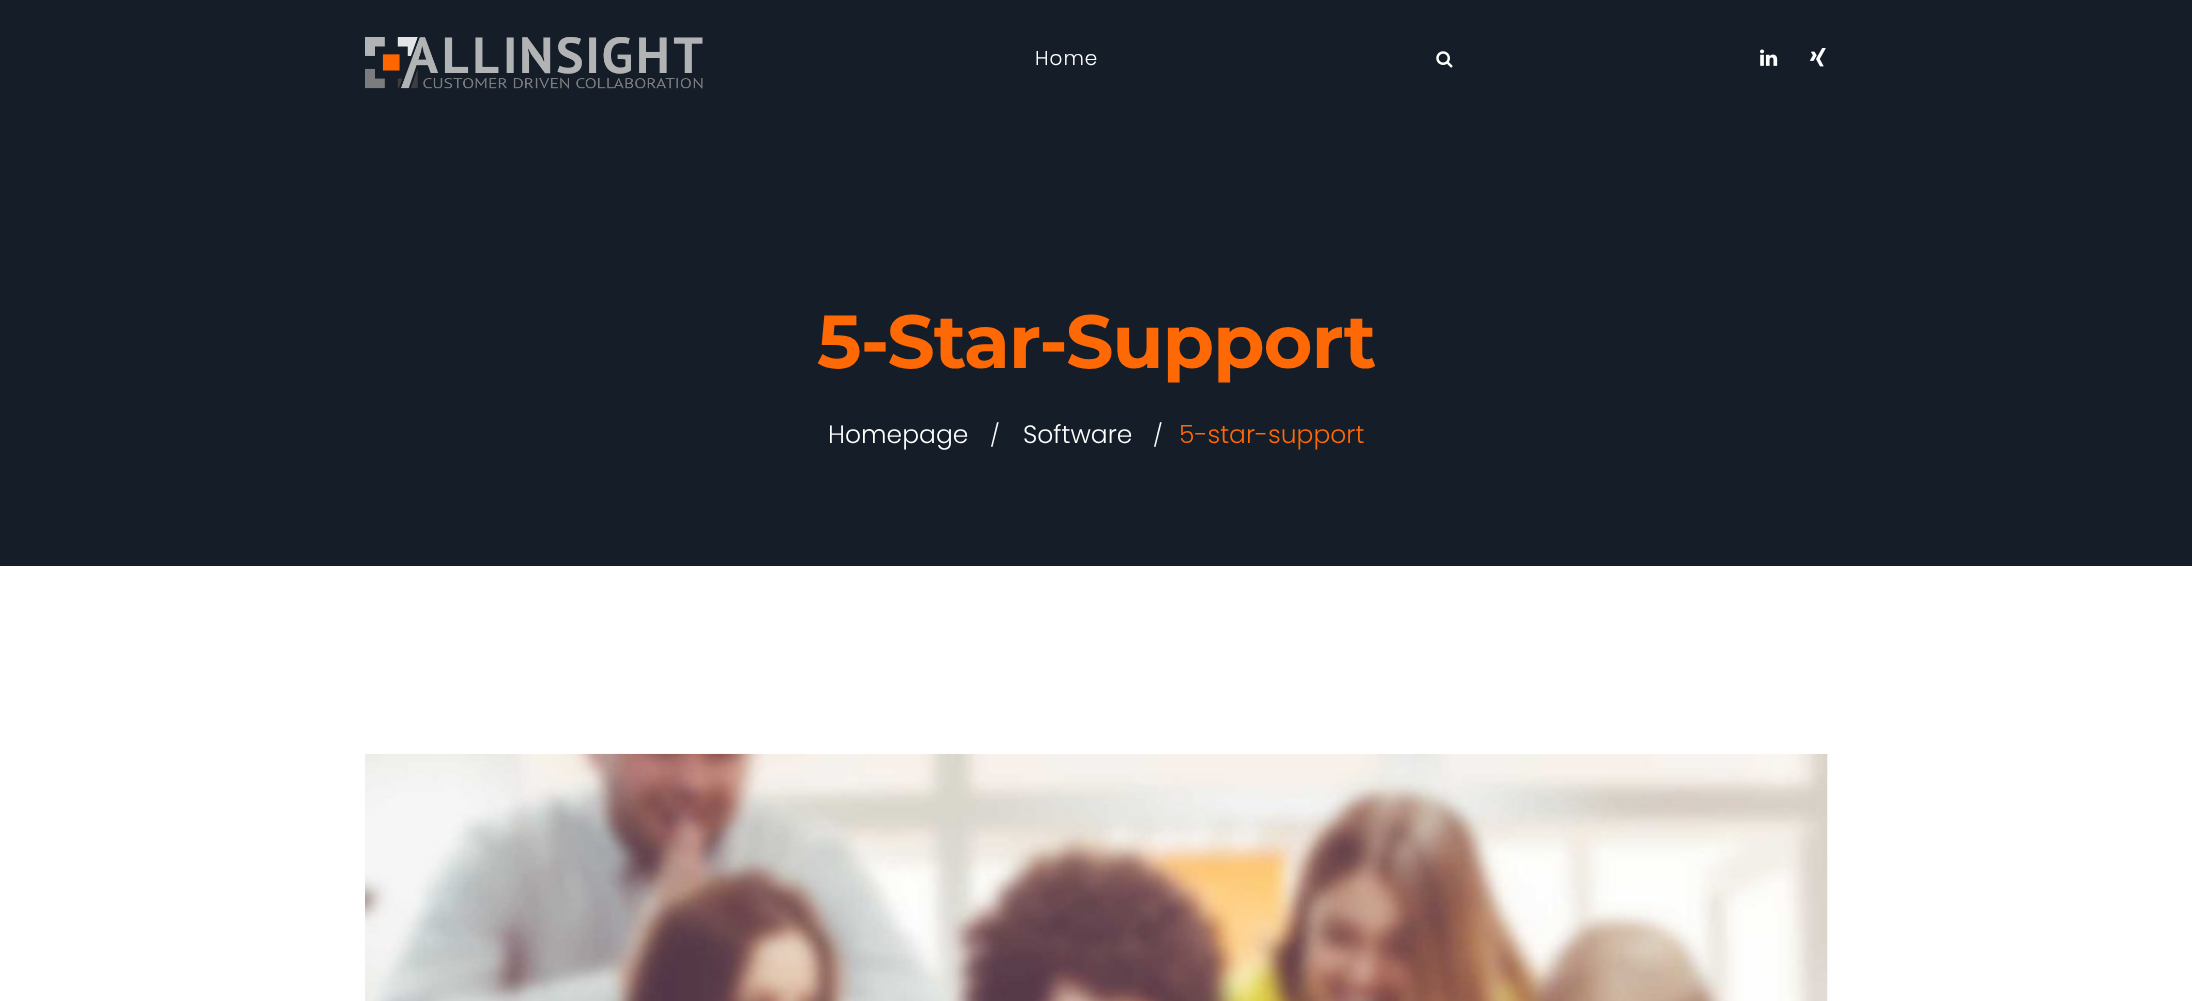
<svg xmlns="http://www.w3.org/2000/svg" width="2192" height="1001">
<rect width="100%" height="100%" fill="#fff"/>
<rect width="2192" height="566" fill="#141d28"/>
<image x="365" y="37" width="338" height="52" href="media/1.png"/>
<text x="1035" y="65" style="font-family:Poppins;font-size:20px;font-weight:300;letter-spacing:1px;fill:#fff">Home</text>
<image x="1436" y="51" width="17" height="17" href="media/2.png"/>
<image x="1760" y="49" width="18" height="17" href="media/3.png"/>
<image x="1810" y="48" width="16" height="19" href="media/4.png"/>
<text x="817" y="368" style="font-family:Montserrat;font-size:75px;font-weight:bold;letter-spacing:-1.25px;fill:#ff6905">5-Star-Support</text>
<text x="828" y="443" style="font-family:Poppins;font-size:25px;font-weight:300;fill:#fff">Homepage</text>
<text x="990" y="443" style="font-family:Poppins;font-size:22px;font-weight:300;fill:#fff">/</text>
<text x="1023" y="443" style="font-family:Poppins;font-size:25px;font-weight:300;fill:#fff">Software</text>
<text x="1153" y="443" style="font-family:Poppins;font-size:22px;font-weight:300;fill:#fff">/</text>
<text x="1179" y="443" style="font-family:Poppins;font-size:25px;font-weight:300;fill:#ff6905">5-star-support</text>
<image x="365" y="753" width="1463" height="248" href="media/5.png"/>
</svg>
